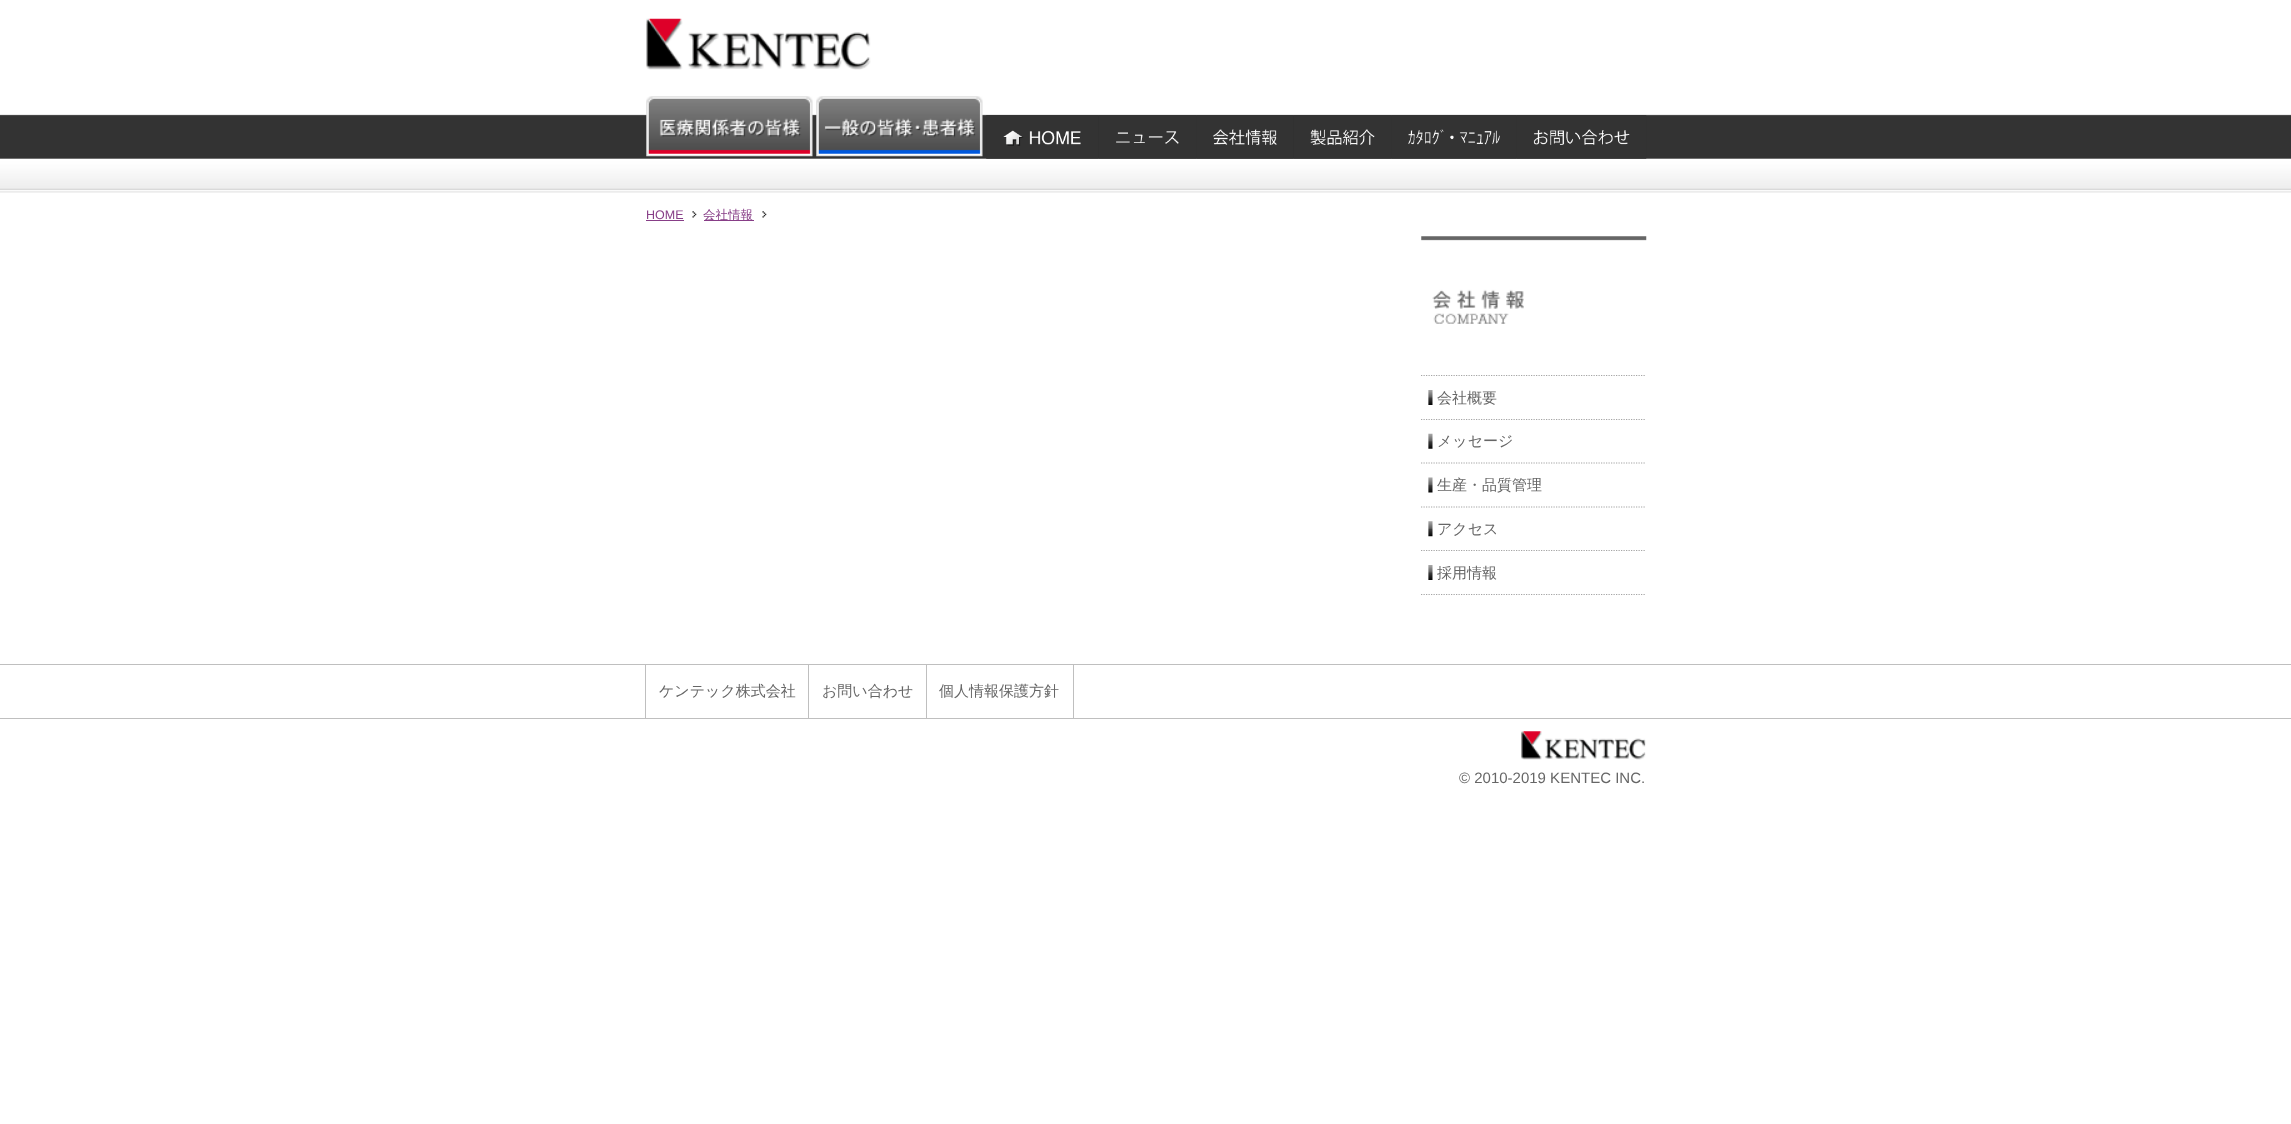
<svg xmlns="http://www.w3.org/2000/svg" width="2291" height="1124">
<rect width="100%" height="100%" fill="#fff"/>
<image x="646" y="18" width="225" height="52" href="media/1.png"/>
<image x="0" y="114" width="2291" height="79" href="media/2.png"/>
<image x="646" y="96" width="167" height="61" href="media/3.png"/>
<image x="816" y="96" width="167" height="61" href="media/4.png"/>
<image x="986" y="115" width="113" height="44" href="media/5.png"/>
<image x="1098" y="115" width="99" height="44" href="media/6.png"/>
<image x="1196" y="115" width="98" height="44" href="media/7.png"/>
<image x="1293" y="115" width="99" height="44" href="media/8.png"/>
<image x="1391" y="115" width="126" height="44" href="media/9.png"/>
<image x="1516" y="115" width="131" height="44" href="media/10.png"/>
<text x="646" y="219" style="font-family:Liberation Sans;font-size:12.5px;fill:#873e87">HOME</text>
<rect x="646" y="220" width="38" height="1" fill="#873e87"/>
<image x="692" y="211" width="5" height="7" href="media/11.png"/>
<rect x="704" y="220" width="50" height="1" fill="#873e87"/>
<text x="703" y="219" style="font-family:WenQuanYi Zen Hei;font-size:12.5px;font-weight:500;fill:#873e87">会社情報</text>
<image x="762" y="211" width="5" height="7" href="media/11.png"/>
<path d="M1421 375.5h225" fill="none" stroke="#a5a5a5" stroke-width="1.2" stroke-dasharray="1.25 1.25"/>
<image x="1421" y="236" width="226" height="139" href="media/12.png"/>
<path d="M1421 419.5h225" fill="none" stroke="#a5a5a5" stroke-width="1.2" stroke-dasharray="1.25 1.25"/>
<image x="1428" y="390" width="5" height="15" href="media/13.png"/>
<text x="1437" y="403" style="font-family:WenQuanYi Zen Hei;font-size:15px;font-weight:500;fill:#666">会社概要</text>
<path d="M1421 463h225" fill="none" stroke="#a5a5a5" stroke-width="1.2" stroke-dasharray="1.25 1.25"/>
<image x="1428" y="433" width="5" height="16" href="media/14.png"/>
<text x="1437" y="446" style="font-family:WenQuanYi Zen Hei;font-size:15px;font-weight:500;fill:#666">メッセージ</text>
<path d="M1421 507h225" fill="none" stroke="#a5a5a5" stroke-width="1.2" stroke-dasharray="1.25 1.25"/>
<image x="1428" y="477" width="5" height="16" href="media/15.png"/>
<text x="1437" y="490" style="font-family:WenQuanYi Zen Hei;font-size:15px;font-weight:500;fill:#666">生産・品質管理</text>
<path d="M1421 550.5h225" fill="none" stroke="#a5a5a5" stroke-width="1.2" stroke-dasharray="1.25 1.25"/>
<image x="1428" y="521" width="5" height="16" href="media/16.png"/>
<text x="1437" y="534" style="font-family:WenQuanYi Zen Hei;font-size:15px;font-weight:500;fill:#666">アクセス</text>
<path d="M1421 594.5h225" fill="none" stroke="#a5a5a5" stroke-width="1.2" stroke-dasharray="1.25 1.25"/>
<image x="1428" y="565" width="5" height="15" href="media/13.png"/>
<text x="1437" y="578" style="font-family:WenQuanYi Zen Hei;font-size:15px;font-weight:500;fill:#666">採用情報</text>
<rect y="664" width="2291" height="1" fill="#bfbfbf"/>
<rect y="718" width="2291" height="1" fill="#bfbfbf"/>
<rect x="645" y="665" width="1" height="53" fill="#bfbfbf"/>
<rect x="808" y="665" width="1" height="53" fill="#bfbfbf"/>
<text x="659" y="696" style="font-family:WenQuanYi Zen Hei;font-size:15px;font-weight:500;fill:#666">ケンテック株式会社</text>
<rect x="926" y="665" width="1" height="53" fill="#bfbfbf"/>
<text x="822" y="696" style="font-family:WenQuanYi Zen Hei;font-size:15px;font-weight:500;fill:#666">お問い合わせ</text>
<rect x="1073" y="665" width="1" height="53" fill="#bfbfbf"/>
<text x="939" y="696" style="font-family:WenQuanYi Zen Hei;font-size:15px;font-weight:500;fill:#666">個人情報保護方針</text>
<image x="1521" y="731" width="125" height="29" href="media/17.png"/>
<text x="1459" y="783" style="font-family:Liberation Sans;font-size:15px;fill:#666">© 2010-2019 KENTEC INC.</text>
</svg>
